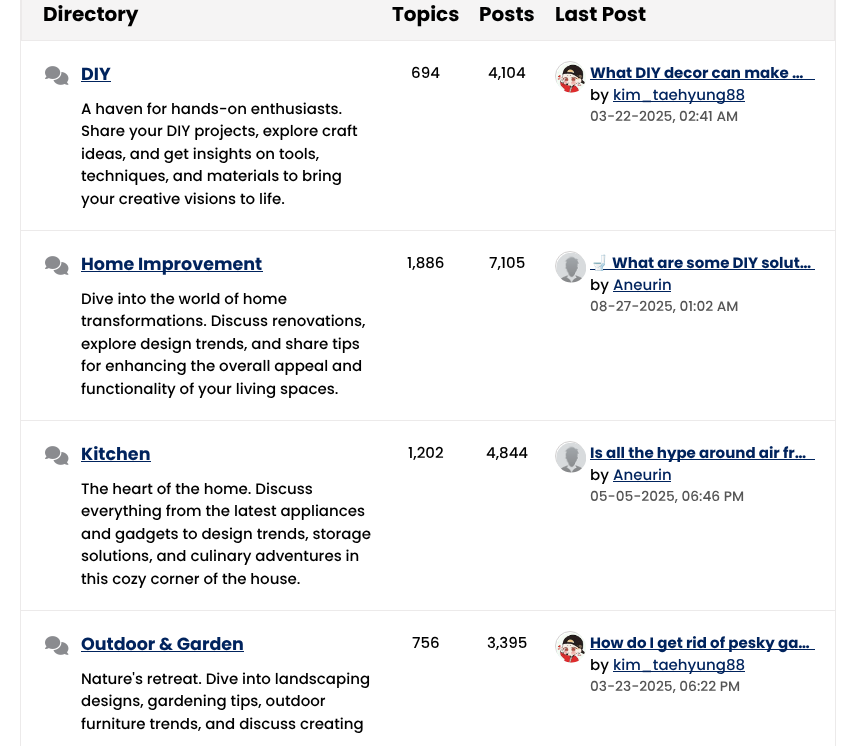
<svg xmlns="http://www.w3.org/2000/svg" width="856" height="746">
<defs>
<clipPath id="clip1"><rect x="590" y="251" width="225" height="23"/></clipPath>
</defs>
<rect width="100%" height="100%" fill="#fff"/>
<rect x="20.5" y="-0.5" width="815" height="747" fill="none" stroke="#eceaea"/>
<rect x="22" width="812" height="40" fill="#f5f4f4"/>
<rect x="21" y="40" width="814" height="1" fill="#eceaea"/>
<rect x="21" width="1" height="41" fill="#eceaea"/>
<text x="43" y="21" style="font-family:Poppins;font-size:20px;font-weight:bold;fill:#000">Directory</text>
<text x="392" y="21" style="font-family:Poppins;font-size:20px;font-weight:bold;fill:#000">Topics</text>
<text x="479" y="21" style="font-family:Poppins;font-size:20px;font-weight:bold;fill:#000">Posts</text>
<rect x="834" width="1" height="41" fill="#eceaea"/>
<text x="555" y="21" style="font-family:Poppins;font-size:20px;font-weight:bold;fill:#000">Last Post</text>
<image x="45" y="66" width="24" height="19" href="media/1.png"/>
<text x="81" y="80" style="font-family:Poppins;font-size:17.5px;font-weight:bold;fill:#00235d">DIY</text>
<rect x="81" y="81" width="30" height="1" fill="#00235d"/>
<text x="81" y="114" style="font-family:Poppins;font-size:15px;font-weight:500;fill:#000">A haven for hands-on enthusiasts.</text>
<text x="81" y="136" style="font-family:Poppins;font-size:15px;font-weight:500;fill:#000">Share your DIY projects, explore craft</text>
<text x="81" y="159" style="font-family:Poppins;font-size:15px;font-weight:500;fill:#000">ideas, and get insights on tools,</text>
<text x="81" y="181" style="font-family:Poppins;font-size:15px;font-weight:500;fill:#000">techniques, and materials to bring</text>
<text x="81" y="204" style="font-family:Poppins;font-size:15px;font-weight:500;fill:#000">your creative visions to life.</text>
<text x="411" y="78" style="font-family:Poppins;font-size:15px;font-weight:500;fill:#000">694</text>
<text x="488" y="78" style="font-family:Poppins;font-size:15px;font-weight:500;fill:#000">4,104</text>
<circle cx="570" cy="76" r="14.5" fill="none" stroke="#d3d1d1"/>
<image x="556" y="63" width="30" height="30" href="media/2.png"/>
<text x="590" y="78" style="font-family:Poppins;font-size:15px;font-weight:bold;fill:#00235d">What DIY decor can make …</text>
<rect x="590" y="79" width="225" height="1" fill="#00235d"/>
<text x="590" y="100" style="font-family:Poppins;font-size:15px;font-weight:500;fill:#000">by</text>
<rect x="613" y="101" width="132" height="1" fill="#00235d"/>
<text x="613" y="100" style="font-family:Poppins;font-size:15px;font-weight:500;fill:#00235d">kim_taehyung88</text>
<text x="590" y="121" style="font-family:Poppins;font-size:13.75px;font-weight:500;fill:#555">03-22-2025, 02:41 AM</text>
<rect x="21" y="230" width="814" height="1" fill="#eceaea"/>
<image x="45" y="256" width="24" height="19" href="media/1.png"/>
<rect x="81" y="271" width="182" height="1" fill="#00235d"/>
<text x="81" y="270" style="font-family:Poppins;font-size:17.5px;font-weight:bold;fill:#00235d">Home Improvement</text>
<text x="81" y="304" style="font-family:Poppins;font-size:15px;font-weight:500;fill:#000">Dive into the world of home</text>
<text x="81" y="326" style="font-family:Poppins;font-size:15px;font-weight:500;fill:#000">transformations. Discuss renovations,</text>
<text x="81" y="349" style="font-family:Poppins;font-size:15px;font-weight:500;fill:#000">explore design trends, and share tips</text>
<text x="81" y="371" style="font-family:Poppins;font-size:15px;font-weight:500;fill:#000">for enhancing the overall appeal and</text>
<text x="81" y="394" style="font-family:Poppins;font-size:15px;font-weight:500;fill:#000">functionality of your living spaces.</text>
<text x="407" y="268" style="font-family:Poppins;font-size:15px;font-weight:500;fill:#000">1,886</text>
<text x="489" y="268" style="font-family:Poppins;font-size:15px;font-weight:500;fill:#000">7,105</text>
<circle cx="570" cy="266" r="14.5" fill="none" stroke="#d3d1d1"/>
<image x="556" y="253" width="30" height="30" href="media/3.png"/>
<rect x="590" y="269" width="225" height="1" fill="#00235d"/>
<g clip-path="url(#clip1)">
<text x="590" y="268" style="font-family:Noto Color Emoji;font-size:15px;font-weight:bold;fill:#00235d">🚽</text>
</g>
<text x="612" y="268" style="font-family:Poppins;font-size:15px;font-weight:bold;fill:#00235d">What are some DIY solut…</text>
<text x="590" y="290" style="font-family:Poppins;font-size:15px;font-weight:500;fill:#000">by</text>
<text x="613" y="290" style="font-family:Poppins;font-size:15px;font-weight:500;fill:#00235d">Aneurin</text>
<rect x="613" y="291" width="58" height="1" fill="#00235d"/>
<text x="590" y="311" style="font-family:Poppins;font-size:13.75px;font-weight:500;fill:#555">08-27-2025, 01:02 AM</text>
<rect x="21" y="420" width="814" height="1" fill="#eceaea"/>
<image x="45" y="446" width="24" height="19" href="media/1.png"/>
<text x="81" y="460" style="font-family:Poppins;font-size:17.5px;font-weight:bold;fill:#00235d">Kitchen</text>
<rect x="81" y="461" width="70" height="1" fill="#00235d"/>
<text x="81" y="494" style="font-family:Poppins;font-size:15px;font-weight:500;fill:#000">The heart of the home. Discuss</text>
<text x="81" y="516" style="font-family:Poppins;font-size:15px;font-weight:500;fill:#000">everything from the latest appliances</text>
<text x="81" y="539" style="font-family:Poppins;font-size:15px;font-weight:500;fill:#000">and gadgets to design trends, storage</text>
<text x="81" y="561" style="font-family:Poppins;font-size:15px;font-weight:500;fill:#000">solutions, and culinary adventures in</text>
<text x="81" y="584" style="font-family:Poppins;font-size:15px;font-weight:500;fill:#000">this cozy corner of the house.</text>
<text x="408" y="458" style="font-family:Poppins;font-size:15px;font-weight:500;fill:#000">1,202</text>
<text x="486" y="458" style="font-family:Poppins;font-size:15px;font-weight:500;fill:#000">4,844</text>
<circle cx="570" cy="456" r="14.5" fill="none" stroke="#d3d1d1"/>
<image x="556" y="443" width="30" height="30" href="media/3.png"/>
<rect x="590" y="459" width="225" height="1" fill="#00235d"/>
<text x="590" y="458" style="font-family:Poppins;font-size:15px;font-weight:bold;fill:#00235d">Is all the hype around air fr…</text>
<text x="590" y="480" style="font-family:Poppins;font-size:15px;font-weight:500;fill:#000">by</text>
<text x="613" y="480" style="font-family:Poppins;font-size:15px;font-weight:500;fill:#00235d">Aneurin</text>
<rect x="613" y="481" width="58" height="1" fill="#00235d"/>
<text x="590" y="501" style="font-family:Poppins;font-size:13.75px;font-weight:500;fill:#555">05-05-2025, 06:46 PM</text>
<rect x="21" y="610" width="814" height="1" fill="#eceaea"/>
<image x="45" y="636" width="24" height="19" href="media/1.png"/>
<text x="81" y="650" style="font-family:Poppins;font-size:17.5px;font-weight:bold;fill:#00235d">Outdoor &amp; Garden</text>
<rect x="81" y="651" width="163" height="1" fill="#00235d"/>
<text x="81" y="684" style="font-family:Poppins;font-size:15px;font-weight:500;fill:#000">Nature's retreat. Dive into landscaping</text>
<text x="81" y="706" style="font-family:Poppins;font-size:15px;font-weight:500;fill:#000">designs, gardening tips, outdoor</text>
<text x="81" y="729" style="font-family:Poppins;font-size:15px;font-weight:500;fill:#000">furniture trends, and discuss creating</text>
<text x="412" y="648" style="font-family:Poppins;font-size:15px;font-weight:500;fill:#000">756</text>
<text x="487" y="648" style="font-family:Poppins;font-size:15px;font-weight:500;fill:#000">3,395</text>
<circle cx="570" cy="646" r="14.5" fill="none" stroke="#d3d1d1"/>
<image x="556" y="633" width="30" height="30" href="media/4.png"/>
<rect x="590" y="649" width="225" height="1" fill="#00235d"/>
<text x="590" y="648" style="font-family:Poppins;font-size:15px;font-weight:bold;fill:#00235d">How do I get rid of pesky ga…</text>
<text x="590" y="670" style="font-family:Poppins;font-size:15px;font-weight:500;fill:#000">by</text>
<rect x="613" y="671" width="132" height="1" fill="#00235d"/>
<text x="613" y="670" style="font-family:Poppins;font-size:15px;font-weight:500;fill:#00235d">kim_taehyung88</text>
<text x="590" y="691" style="font-family:Poppins;font-size:13.75px;font-weight:500;fill:#555">03-23-2025, 06:22 PM</text>
</svg>
